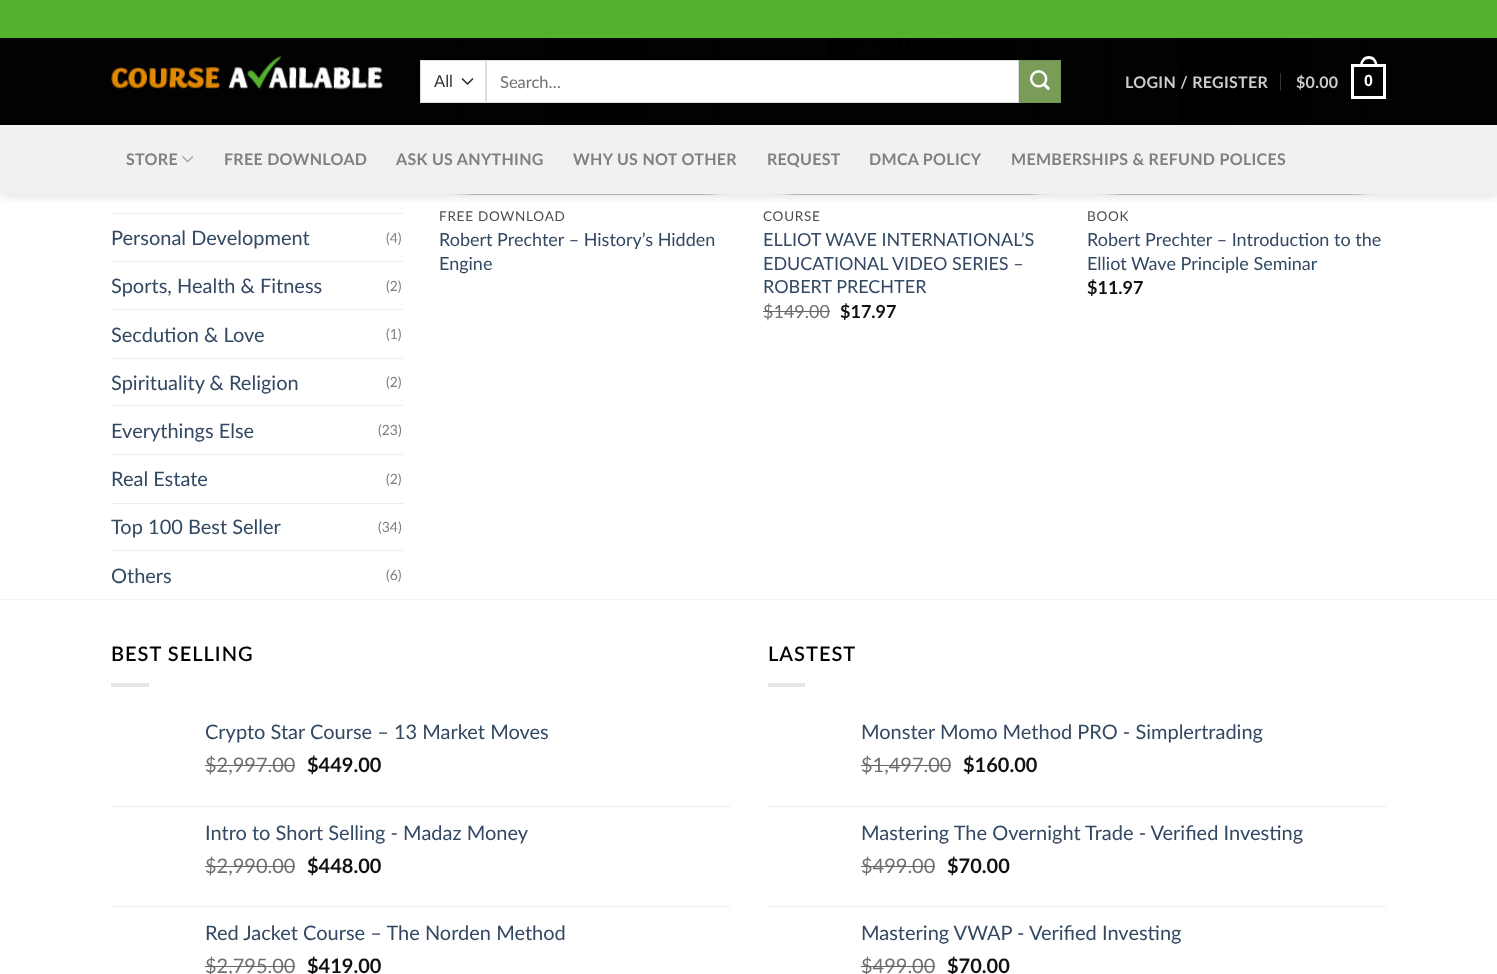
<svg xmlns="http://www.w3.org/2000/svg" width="1497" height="974">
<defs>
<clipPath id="clip1"><rect x="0" y="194" width="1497" height="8"/></clipPath>
</defs>
<rect width="100%" height="100%" fill="#fff"/>
<rect x="111" y="68" width="292" height="1" fill="#ececec"/>
<rect x="111" y="116" width="292" height="1" fill="#ececec"/>
<rect x="111" y="213" width="292" height="1" fill="#ececec"/>
<image x="451" y="38" width="275" height="157" href="media/4.png"/>
<image x="775" y="38" width="275" height="157" href="media/5.png"/>
<image x="1100" y="38" width="274" height="157" href="media/6.png"/>
<g clip-path="url(#clip1)">
<rect x="1" y="1" width="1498" height="194" fill="#00000026" filter="blur(6px)"/>
</g>
<rect y="38" width="1497" height="87" fill="#000000e6"/>
<rect width="1497" height="38" fill="#55b22f"/>
<rect y="38" width="1497" height="87" fill="#000000e6"/>
<image x="111" y="56" width="272" height="34" href="media/1.png"/>
<rect x="421" y="61" width="64" height="41" fill="#fff"/>
<path d="M462.5 79l5 5l5-5" fill="none" stroke="#333" stroke-width="1.7" stroke-linecap="round" stroke-linejoin="round"/>
<rect x="420.5" y="60.5" width="65" height="42" fill="none" stroke="#ddd"/>
<text x="434" y="87" style="font-family:Lato;font-size:16.5px;fill:#333">All</text>
<rect x="486.5" y="60.5" width="532" height="42" fill="#fff" stroke="#ddd"/>
<text x="500" y="88" style="font-family:Lato;font-size:16.5px;fill:#707070">Search…</text>
<rect x="1019.5" y="60.5" width="41" height="42" fill="#7a9c59" stroke="#749455"/>
<image x="1030" y="70" width="20" height="20" href="media/2.png"/>
<text x="1125" y="88" style="font-family:Lato;font-size:16px;font-weight:bold;letter-spacing:0.3px;fill:#ccc">LOGIN / REGISTER</text>
<rect x="1280" y="73" width="1" height="18" fill="#343434"/>
<text x="1296" y="88" style="font-family:Lato;font-size:16px;font-weight:bold;letter-spacing:0.3px;fill:#ccc">$0.00</text>
<rect x="1352.5" y="65.5" width="32" height="32" fill="none" stroke="#fff" stroke-width="3"/>
<path d="M1369 56c5.5 0 8.5 5 8.5 10h-17.5c0-5 3-10 9-10zm0 3c4 0 6 3.5 6 7h-12.5c0-3.5 2-7 6.5-7z" fill="#fff" fill-rule="evenodd"/>
<text x="1364" y="86" style="font-family:Liberation Sans;font-size:16px;font-weight:bold;letter-spacing:0.3px;fill:#fff">0</text>
<rect y="125" width="1497" height="69" fill="#f1f1f1"/>
<text x="126" y="165" style="font-family:Lato;font-size:16px;font-weight:bold;letter-spacing:0.3px;fill:#808080">STORE</text>
<image x="182" y="156" width="12" height="7" href="media/3.png"/>
<text x="224" y="165" style="font-family:Lato;font-size:16px;font-weight:bold;letter-spacing:0.3px;fill:#808080">FREE DOWNLOAD</text>
<text x="396" y="165" style="font-family:Lato;font-size:16px;font-weight:bold;letter-spacing:0.3px;fill:#808080">ASK US ANYTHING</text>
<text x="573" y="165" style="font-family:Lato;font-size:16px;font-weight:bold;letter-spacing:0.3px;fill:#808080">WHY US NOT OTHER</text>
<text x="767" y="165" style="font-family:Lato;font-size:16px;font-weight:bold;letter-spacing:0.3px;fill:#808080">REQUEST</text>
<text x="869" y="165" style="font-family:Lato;font-size:16px;font-weight:bold;letter-spacing:0.3px;fill:#808080">DMCA POLICY</text>
<text x="1011" y="165" style="font-family:Lato;font-size:16px;font-weight:bold;letter-spacing:0.3px;fill:#808080">MEMBERSHIPS &amp; REFUND POLICES</text>
<text x="111" y="245" style="font-family:Lato;font-size:20px;fill:#334862">Personal Development</text>
<text x="386" y="243" style="font-family:Lato;font-size:14px;fill:#808080">(4)</text>
<rect x="111" y="261" width="292" height="1" fill="#ececec"/>
<text x="111" y="293" style="font-family:Lato;font-size:20px;fill:#334862">Sports, Health &amp; Fitness</text>
<text x="386" y="291" style="font-family:Lato;font-size:14px;fill:#808080">(2)</text>
<rect x="111" y="309" width="292" height="1" fill="#ececec"/>
<text x="111" y="342" style="font-family:Lato;font-size:20px;fill:#334862">Secdution &amp; Love</text>
<text x="386" y="339" style="font-family:Lato;font-size:14px;fill:#808080">(1)</text>
<rect x="111" y="358" width="292" height="1" fill="#ececec"/>
<text x="111" y="390" style="font-family:Lato;font-size:20px;fill:#334862">Spirituality &amp; Religion</text>
<text x="386" y="387" style="font-family:Lato;font-size:14px;fill:#808080">(2)</text>
<rect x="111" y="405" width="292" height="1" fill="#ececec"/>
<text x="111" y="438" style="font-family:Lato;font-size:20px;fill:#334862">Everythings Else</text>
<text x="378" y="435" style="font-family:Lato;font-size:14px;fill:#808080">(23)</text>
<rect x="111" y="454" width="292" height="1" fill="#ececec"/>
<text x="111" y="486" style="font-family:Lato;font-size:20px;fill:#334862">Real Estate</text>
<text x="386" y="484" style="font-family:Lato;font-size:14px;fill:#808080">(2)</text>
<rect x="111" y="503" width="292" height="1" fill="#ececec"/>
<text x="111" y="534" style="font-family:Lato;font-size:20px;fill:#334862">Top 100 Best Seller</text>
<text x="378" y="532" style="font-family:Lato;font-size:14px;fill:#808080">(34)</text>
<rect x="111" y="550" width="292" height="1" fill="#ececec"/>
<text x="111" y="583" style="font-family:Lato;font-size:20px;fill:#334862">Others</text>
<text x="386" y="580" style="font-family:Lato;font-size:14px;fill:#808080">(6)</text>
<text x="439" y="221" style="font-family:Lato;font-size:13.5px;letter-spacing:0.75px;fill:#4d4d4d">FREE DOWNLOAD</text>
<text x="439" y="246" style="font-family:Lato;font-size:18px;fill:#334862">Robert Prechter – History’s Hidden</text>
<text x="439" y="270" style="font-family:Lato;font-size:18px;fill:#334862">Engine</text>
<text x="763" y="221" style="font-family:Lato;font-size:13.5px;letter-spacing:0.75px;fill:#4d4d4d">COURSE</text>
<text x="763" y="246" style="font-family:Lato;font-size:18px;fill:#334862">ELLIOT WAVE INTERNATIONAL’S</text>
<text x="763" y="270" style="font-family:Lato;font-size:18px;fill:#334862">EDUCATIONAL VIDEO SERIES –</text>
<text x="763" y="293" style="font-family:Lato;font-size:18px;fill:#334862">ROBERT PRECHTER</text>
<text x="763" y="318" style="font-family:Lato;font-size:18px;fill:#707070">$149.00</text>
<rect x="763" y="311" width="67" height="1" fill="#666"/>
<text x="840" y="318" style="font-family:Lato;font-size:18px;font-weight:bold;fill:#111">$17.97</text>
<text x="1087" y="221" style="font-family:Lato;font-size:13.5px;letter-spacing:0.75px;fill:#4d4d4d">BOOK</text>
<text x="1087" y="246" style="font-family:Lato;font-size:18px;fill:#334862">Robert Prechter – Introduction to the</text>
<text x="1087" y="270" style="font-family:Lato;font-size:18px;fill:#334862">Elliot Wave Principle Seminar</text>
<text x="1087" y="294" style="font-family:Lato;font-size:18px;font-weight:bold;fill:#111">$11.97</text>
<rect y="599" width="1497" height="1" fill="#f2f2f2"/>
<text x="111" y="661" style="font-family:Lato;font-size:20px;font-weight:600;letter-spacing:1px;fill:#000">BEST SELLING</text>
<rect x="111" y="683" width="38" height="4" fill="#e6e6e6"/>
<text x="205" y="739" style="font-family:Lato;font-size:20px;fill:#334862">Crypto Star Course – 13 Market Moves</text>
<text x="205" y="772" style="font-family:Lato;font-size:20px;fill:#707070">$2,997.00</text>
<rect x="205" y="765" width="90" height="1" fill="#666"/>
<text x="307" y="772" style="font-family:Lato;font-size:20px;font-weight:bold;fill:#111">$449.00</text>
<rect x="111" y="806" width="619" height="1" fill="#ececec"/>
<text x="205" y="840" style="font-family:Lato;font-size:20px;fill:#334862">Intro to Short Selling - Madaz Money</text>
<text x="205" y="873" style="font-family:Lato;font-size:20px;fill:#707070">$2,990.00</text>
<rect x="205" y="866" width="90" height="1" fill="#666"/>
<text x="307" y="873" style="font-family:Lato;font-size:20px;font-weight:bold;fill:#111">$448.00</text>
<rect x="111" y="906" width="619" height="1" fill="#ececec"/>
<text x="205" y="940" style="font-family:Lato;font-size:20px;fill:#334862">Red Jacket Course – The Norden Method</text>
<text x="205" y="973" style="font-family:Lato;font-size:20px;fill:#707070">$2,795.00</text>
<rect x="205" y="966" width="90" height="1" fill="#666"/>
<text x="307" y="973" style="font-family:Lato;font-size:20px;font-weight:bold;fill:#111">$419.00</text>
<text x="768" y="661" style="font-family:Lato;font-size:20px;font-weight:600;letter-spacing:1px;fill:#000">LASTEST</text>
<rect x="768" y="683" width="37" height="4" fill="#e6e6e6"/>
<text x="861" y="739" style="font-family:Lato;font-size:20px;fill:#334862">Monster Momo Method PRO - Simplertrading</text>
<text x="861" y="772" style="font-family:Lato;font-size:20px;fill:#707070">$1,497.00</text>
<rect x="861" y="765" width="90" height="1" fill="#666"/>
<text x="963" y="772" style="font-family:Lato;font-size:20px;font-weight:bold;fill:#111">$160.00</text>
<rect x="768" y="806" width="618" height="1" fill="#ececec"/>
<text x="861" y="840" style="font-family:Lato;font-size:20px;fill:#334862">Mastering The Overnight Trade - Verified Investing</text>
<text x="861" y="873" style="font-family:Lato;font-size:20px;fill:#707070">$499.00</text>
<rect x="861" y="866" width="74" height="1" fill="#666"/>
<text x="947" y="873" style="font-family:Lato;font-size:20px;font-weight:bold;fill:#111">$70.00</text>
<rect x="768" y="906" width="618" height="1" fill="#ececec"/>
<text x="861" y="940" style="font-family:Lato;font-size:20px;fill:#334862">Mastering VWAP - Verified Investing</text>
<text x="861" y="973" style="font-family:Lato;font-size:20px;fill:#707070">$499.00</text>
<rect x="861" y="966" width="74" height="1" fill="#666"/>
<text x="947" y="973" style="font-family:Lato;font-size:20px;font-weight:bold;fill:#111">$70.00</text>
</svg>
